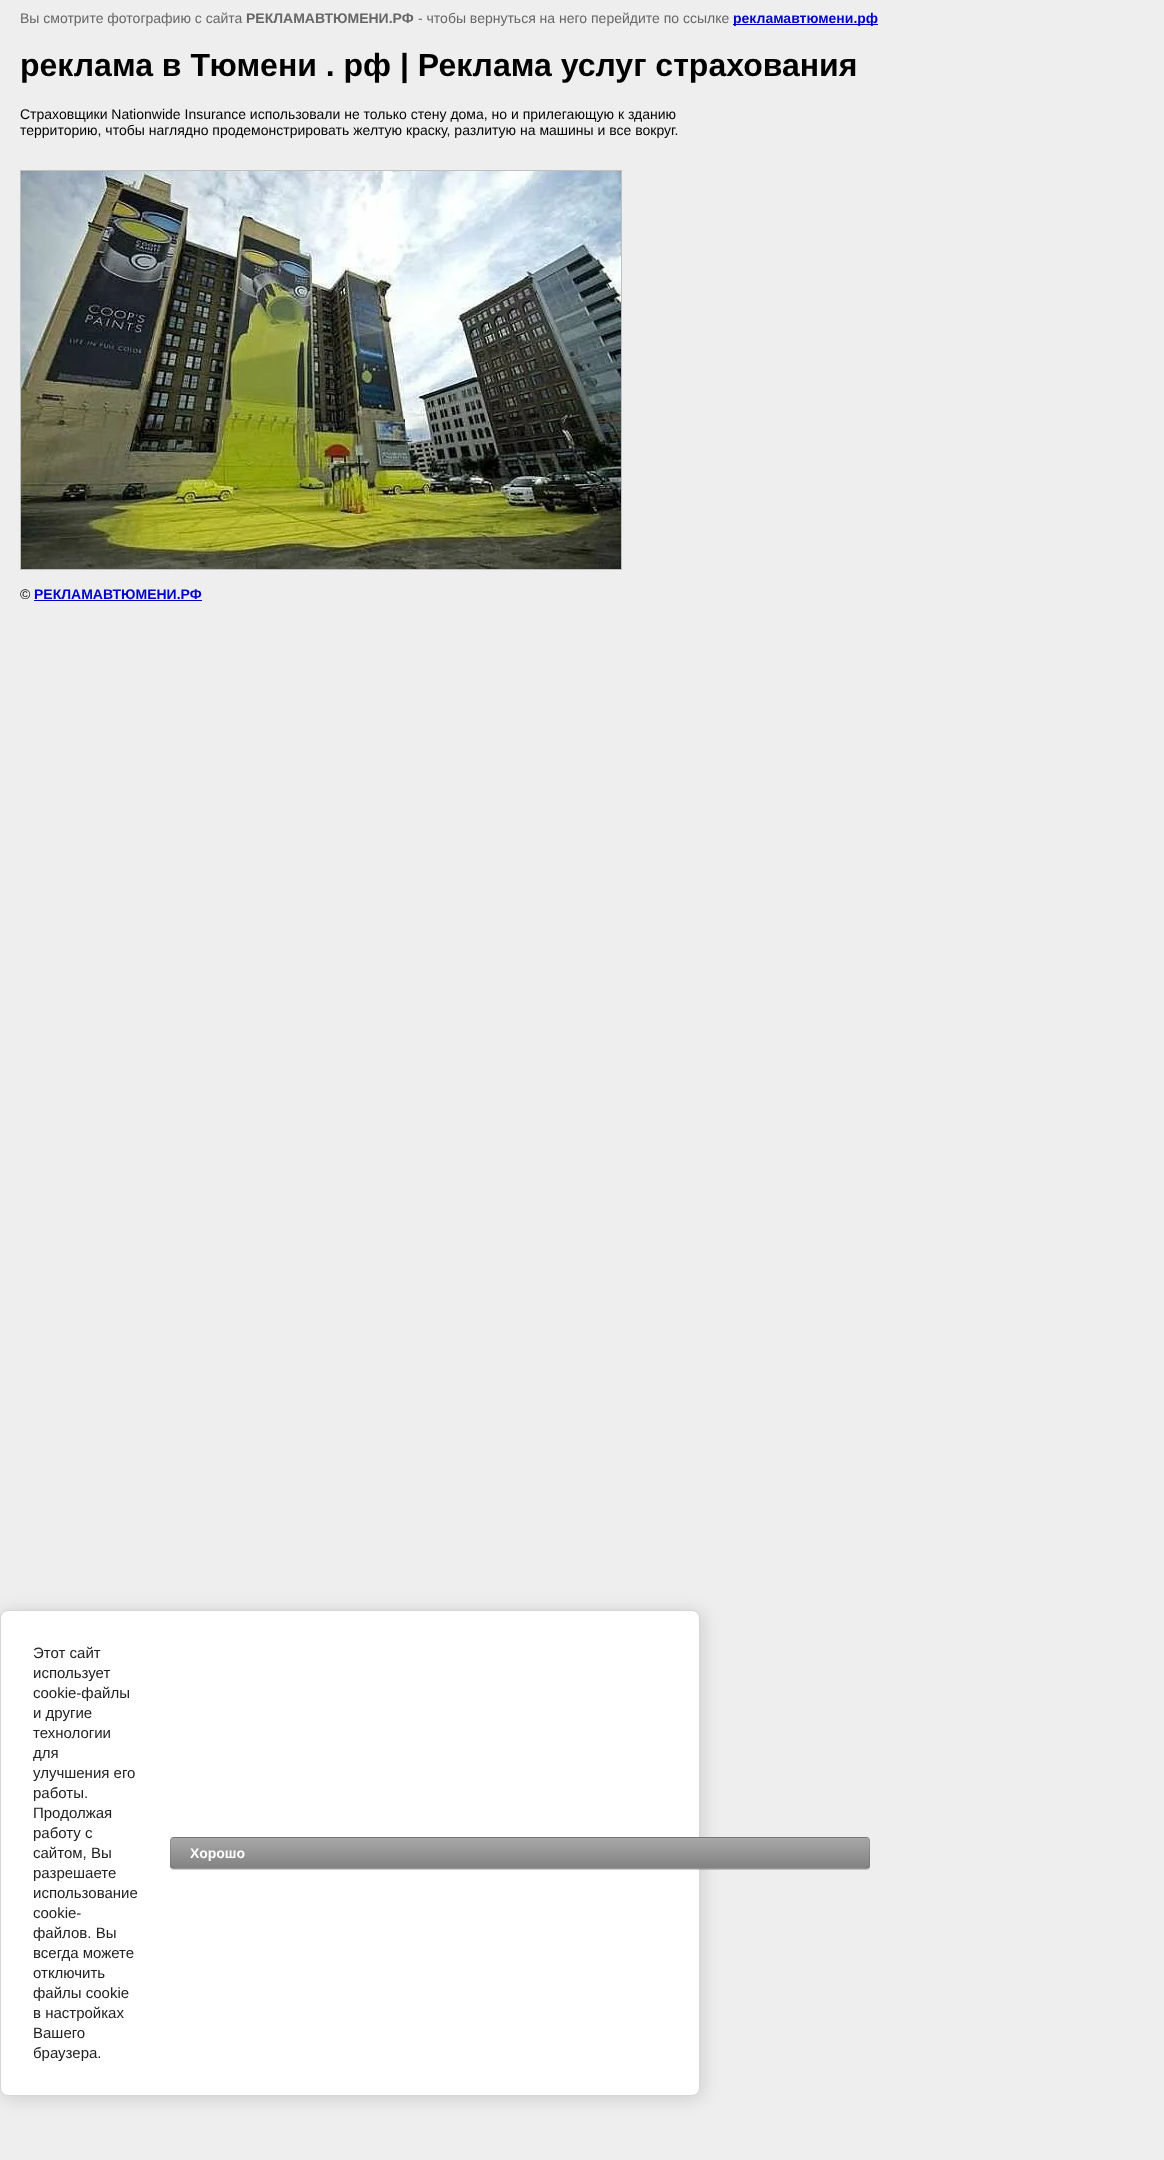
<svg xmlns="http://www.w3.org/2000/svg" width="1164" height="2160">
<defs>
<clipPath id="clip1"><rect x="170" y="1837" width="700" height="32" rx="4"/></clipPath>
<linearGradient id="g1" gradientUnits="userSpaceOnUse" x1="520" y1="1808" x2="520" y2="1838"><stop offset="0" stop-color="#a8a8a8"/><stop offset="1" stop-color="#828282"/></linearGradient>
<linearGradient id="g2" gradientUnits="userSpaceOnUse" x1="520" y1="1838" x2="520" y2="1868"><stop offset="0" stop-color="#a8a8a8"/><stop offset="1" stop-color="#828282"/></linearGradient>
<linearGradient id="g3" gradientUnits="userSpaceOnUse" x1="520" y1="1868" x2="520" y2="1898"><stop offset="0" stop-color="#a8a8a8"/><stop offset="1" stop-color="#828282"/></linearGradient>
</defs>
<rect width="100%" height="100%" fill="#eee"/>
<text x="20" y="23" style="font-family:Liberation Sans;font-size:14px;fill:#666">Вы смотрите фотографию с сайта</text>
<text x="246" y="23" style="font-family:Liberation Sans;font-size:14px;font-weight:bold;fill:#666">РЕКЛАМАВТЮМЕНИ.РФ</text>
<text x="418" y="23" style="font-family:Liberation Sans;font-size:14px;fill:#666">- чтобы вернуться на него перейдите по ссылке</text>
<rect x="733" y="24" width="145" height="1" fill="#00c"/>
<text x="733" y="23" style="font-family:Liberation Sans;font-size:14px;font-weight:bold;fill:#00c">рекламавтюмени.рф</text>
<text x="20" y="76" style="font-family:Liberation Sans;font-size:32px;font-weight:bold;fill:#000">реклама в Тюмени . рф | Реклама услуг страхования</text>
<text x="20" y="119" style="font-family:Liberation Sans;font-size:14px;fill:#000">Страховщики Nationwide Insurance использовали не только стену дома, но и прилегающую к зданию</text>
<text x="20" y="135" style="font-family:Liberation Sans;font-size:14px;fill:#000">территорию, чтобы наглядно продемонстрировать желтую краску, разлитую на машины и все вокруг.</text>
<rect x="20.5" y="170.5" width="601" height="399" fill="none" stroke="#c0c0c0"/>
<image x="21" y="171" width="600" height="398" href="media/1.png"/>
<text x="20" y="599" style="font-family:Liberation Sans;font-size:14px;fill:#000">©</text>
<text x="34" y="599" style="font-family:Liberation Sans;font-size:14px;font-weight:bold;fill:#00c">РЕКЛАМАВТЮМЕНИ.РФ</text>
<rect x="34" y="600" width="168" height="1" fill="#00c"/>
<rect x="2" y="1612" width="700" height="486" rx="8" fill="#00000024" filter="blur(9px)"/>
<rect x="0.5" y="1610.5" width="699" height="485" rx="7.5" fill="#fff" stroke="#d6d6d6"/>
<text x="33" y="1658" style="font-family:Liberation Sans;font-size:15px;fill:#212121">Этот сайт</text>
<text x="33" y="1678" style="font-family:Liberation Sans;font-size:15px;fill:#212121">использует</text>
<text x="33" y="1698" style="font-family:Liberation Sans;font-size:15px;fill:#212121">cookie-файлы</text>
<text x="33" y="1718" style="font-family:Liberation Sans;font-size:15px;fill:#212121">и другие</text>
<text x="33" y="1738" style="font-family:Liberation Sans;font-size:15px;fill:#212121">технологии</text>
<text x="33" y="1758" style="font-family:Liberation Sans;font-size:15px;fill:#212121">для</text>
<text x="33" y="1778" style="font-family:Liberation Sans;font-size:15px;fill:#212121">улучшения его</text>
<text x="33" y="1798" style="font-family:Liberation Sans;font-size:15px;fill:#212121">работы.</text>
<text x="33" y="1818" style="font-family:Liberation Sans;font-size:15px;fill:#212121">Продолжая</text>
<text x="33" y="1838" style="font-family:Liberation Sans;font-size:15px;fill:#212121">работу с</text>
<text x="33" y="1858" style="font-family:Liberation Sans;font-size:15px;fill:#212121">сайтом, Вы</text>
<text x="33" y="1878" style="font-family:Liberation Sans;font-size:15px;fill:#212121">разрешаете</text>
<text x="33" y="1898" style="font-family:Liberation Sans;font-size:15px;fill:#212121">использование</text>
<text x="33" y="1918" style="font-family:Liberation Sans;font-size:15px;fill:#212121">cookie-</text>
<text x="33" y="1938" style="font-family:Liberation Sans;font-size:15px;fill:#212121">файлов. Вы</text>
<text x="33" y="1958" style="font-family:Liberation Sans;font-size:15px;fill:#212121">всегда можете</text>
<text x="33" y="1978" style="font-family:Liberation Sans;font-size:15px;fill:#212121">отключить</text>
<text x="33" y="1998" style="font-family:Liberation Sans;font-size:15px;fill:#212121">файлы cookie</text>
<text x="33" y="2018" style="font-family:Liberation Sans;font-size:15px;fill:#212121">в настройках</text>
<text x="33" y="2038" style="font-family:Liberation Sans;font-size:15px;fill:#212121">Вашего</text>
<text x="33" y="2058" style="font-family:Liberation Sans;font-size:15px;fill:#212121">браузера.</text>
<rect x="170" y="1838" width="700" height="32" rx="4" fill="#00000033" filter="blur(0.5px)"/>
<g clip-path="url(#clip1)">
<rect x="170" y="1837" width="700" height="1" fill="url(#g1)"/>
<rect x="170" y="1838" width="700" height="30" fill="url(#g2)"/>
<rect x="170" y="1868" width="700" height="1" fill="url(#g3)"/>
</g>
<rect x="170.5" y="1837.5" width="699" height="31" rx="3.5" fill="none" stroke="#0000001a"/>
<text x="190" y="1858" style="font-family:Liberation Sans;font-size:14px;font-weight:bold;fill:#fff">Хорошо</text>
</svg>
